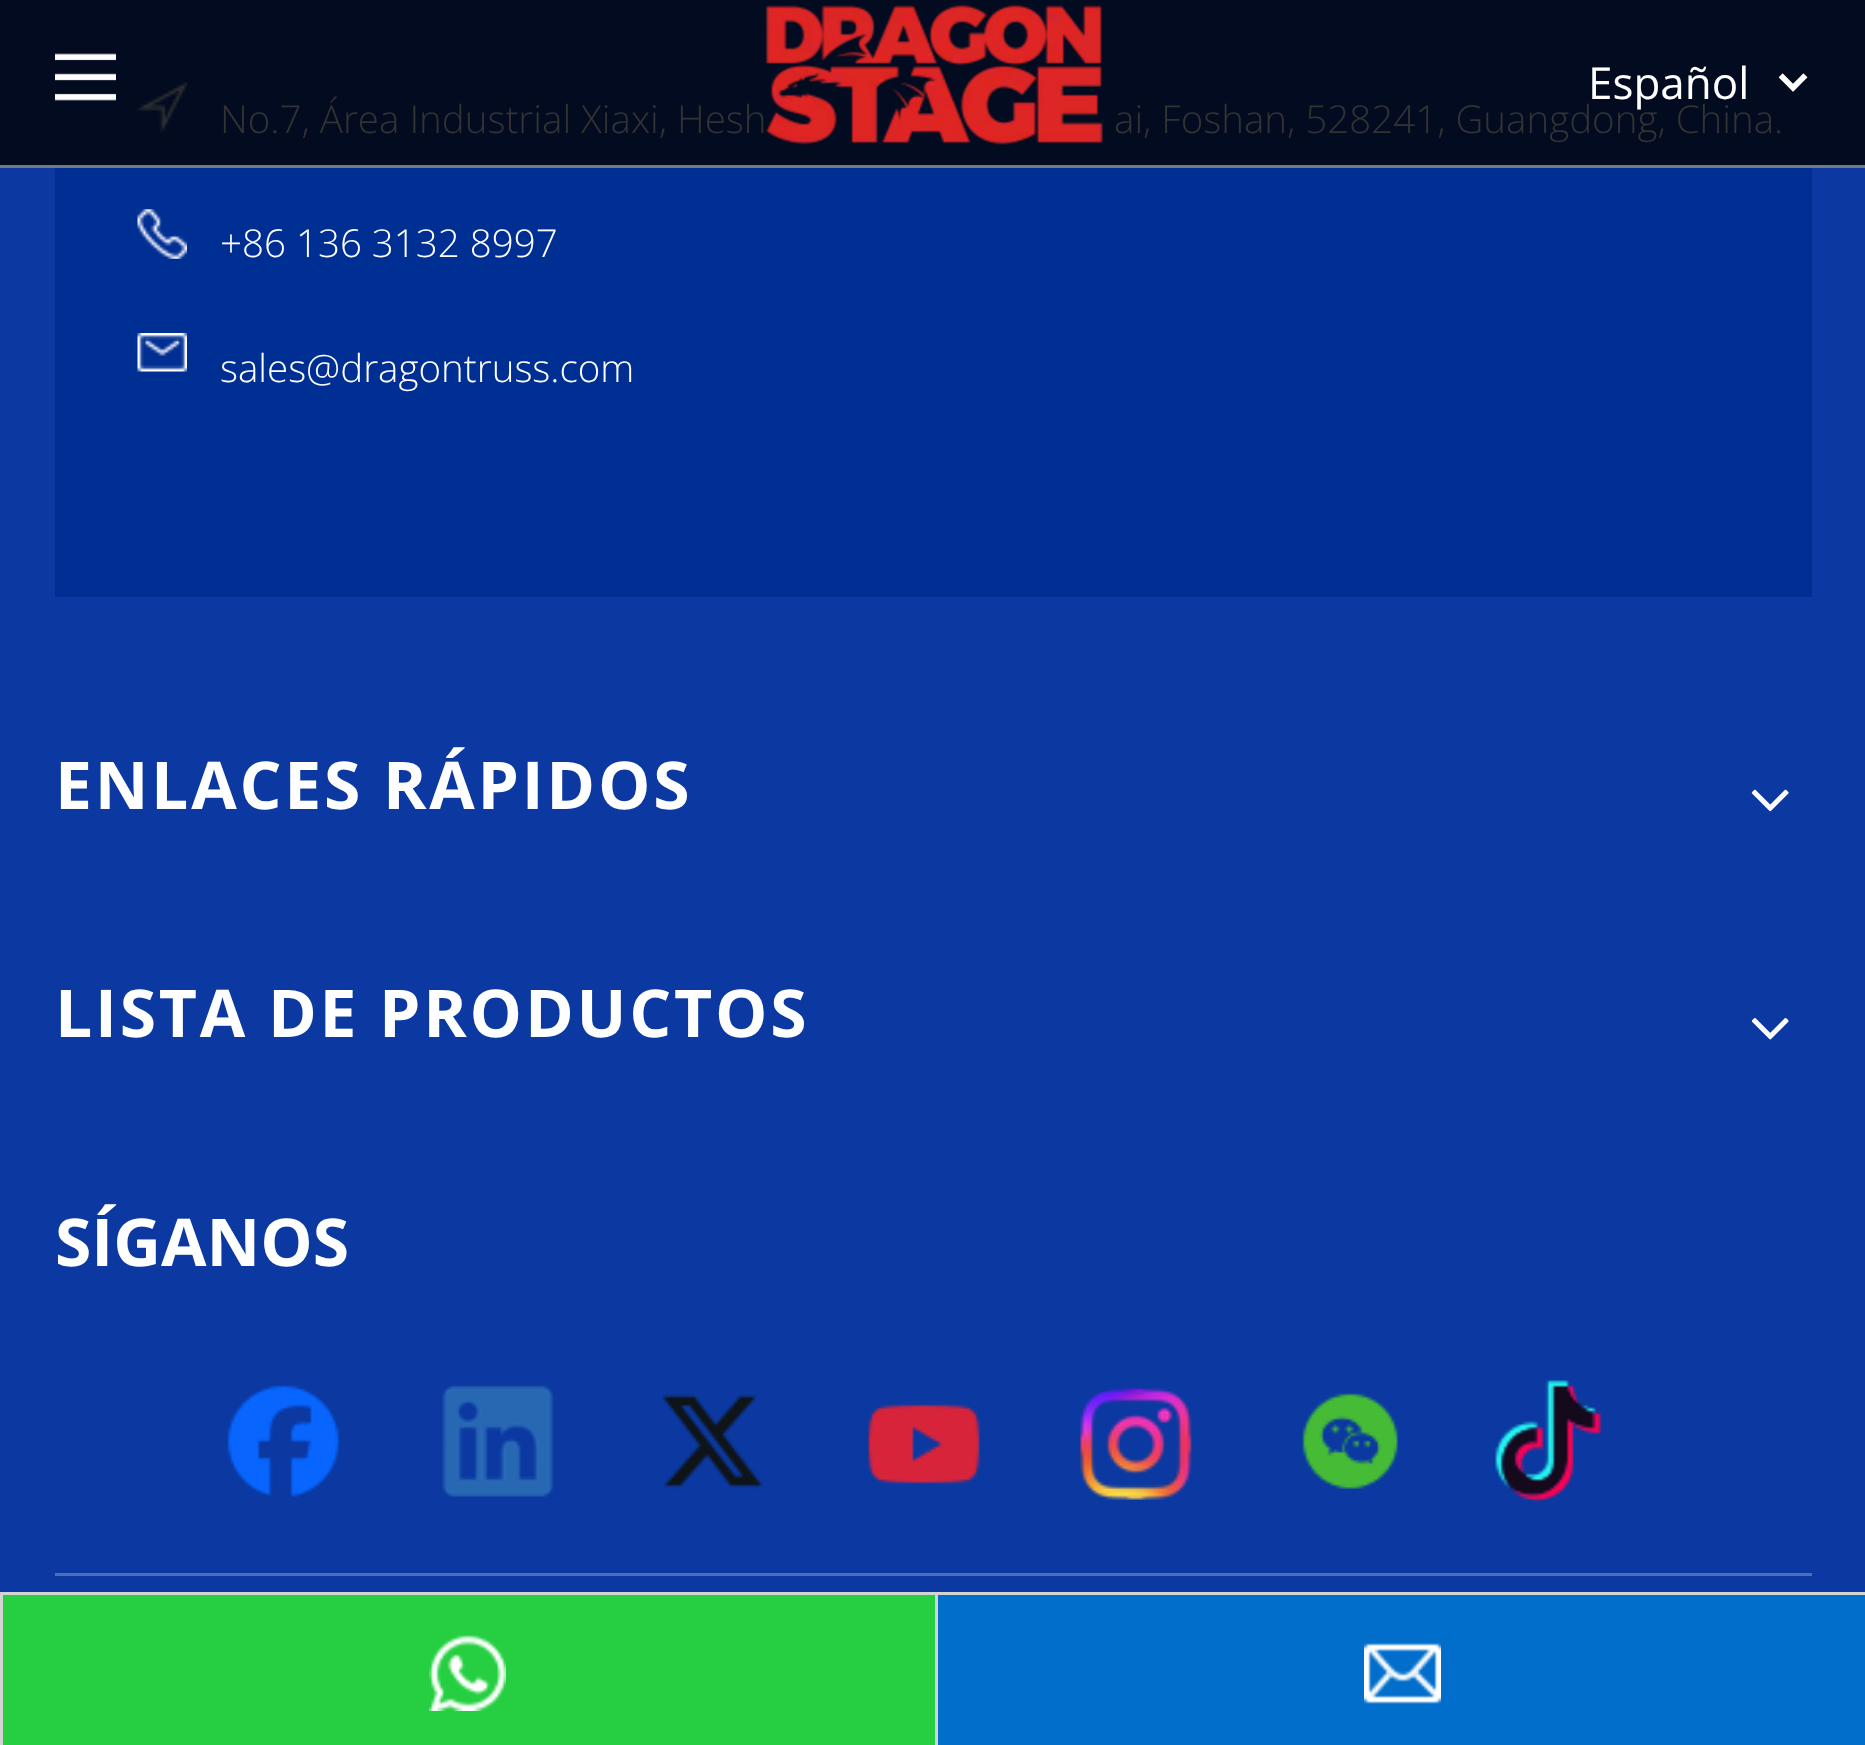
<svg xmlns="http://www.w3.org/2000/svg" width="1865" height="1745">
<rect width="100%" height="100%" fill="#0b39a1"/>
<rect width="1865" height="165" fill="#020b20"/>
<image x="765" y="4" width="339" height="141" href="media/1.png"/>
<image x="55" y="53" width="61" height="48" href="media/2.png"/>
<text x="1588" y="99" style="font-family:Open Sans;font-size:44px;fill:#fff">Español</text>
<image x="1778" y="73" width="30" height="19" href="media/3.png"/>
<rect y="165" width="1865" height="3" fill="#747984"/>
<rect x="55" y="168" width="1757" height="429" fill="#002f94"/>
<image x="137" y="82" width="50" height="51" href="media/4.png"/>
<text x="220" y="133" style="font-family:Open Sans;font-size:38.5px;font-weight:300;fill:#333">No.7, Área Industrial Xiaxi, Hesh</text>
<text x="1114" y="133" style="font-family:Open Sans;font-size:38.5px;font-weight:300;fill:#333">ai, Foshan, 528241, Guangdong, China.</text>
<image x="137" y="209" width="50" height="50" href="media/5.png"/>
<text x="220" y="257" style="font-family:Open Sans;font-size:38.5px;font-weight:300;fill:#fff">+86 136 3132 8997</text>
<image x="137" y="333" width="50" height="39" href="media/6.png"/>
<text x="220" y="382" style="font-family:Open Sans;font-size:38.5px;font-weight:300;fill:#fff">sales@dragontruss.com</text>
<text x="55" y="809" style="font-family:Open Sans;font-size:66px;font-weight:bold;letter-spacing:2.75px;fill:#fff">ENLACES RÁPIDOS</text>
<image x="1751" y="789" width="38" height="23" href="media/7.png"/>
<text x="55" y="1037" style="font-family:Open Sans;font-size:66px;font-weight:bold;letter-spacing:2.75px;fill:#fff">LISTA DE PRODUCTOS</text>
<image x="1751" y="1018" width="38" height="22" href="media/8.png"/>
<text x="55" y="1266" style="font-family:Open Sans;font-size:66px;font-weight:bold;fill:#fff">SÍGANOS</text>
<image x="227" y="1385" width="113" height="113" href="media/9.png"/>
<image x="442" y="1385" width="112" height="112" href="media/10.png"/>
<image x="662" y="1394" width="101" height="95" href="media/11.png"/>
<image x="868" y="1404" width="112" height="80" href="media/12.png"/>
<image x="1080" y="1388" width="112" height="112" href="media/13.png"/>
<image x="1302" y="1393" width="96" height="96" href="media/14.png"/>
<image x="1495" y="1380" width="107" height="123" href="media/15.png"/>
<rect x="55" y="1573" width="1757" height="3" fill="#4d6eba"/>
<rect y="1592" width="1865" height="3" fill="#d3d3d3"/>
<rect y="1595" width="3" height="150" fill="#d3d3d3"/>
<rect x="3" y="1595" width="932" height="150" fill="#26cf41"/>
<image x="429" y="1635" width="77" height="76" href="media/16.png"/>
<rect x="935" y="1595" width="3" height="150" fill="#d3d3d3"/>
<rect x="938" y="1595" width="927" height="150" fill="#016ecb"/>
<image x="1364" y="1643" width="77" height="61" href="media/17.png"/>
</svg>
